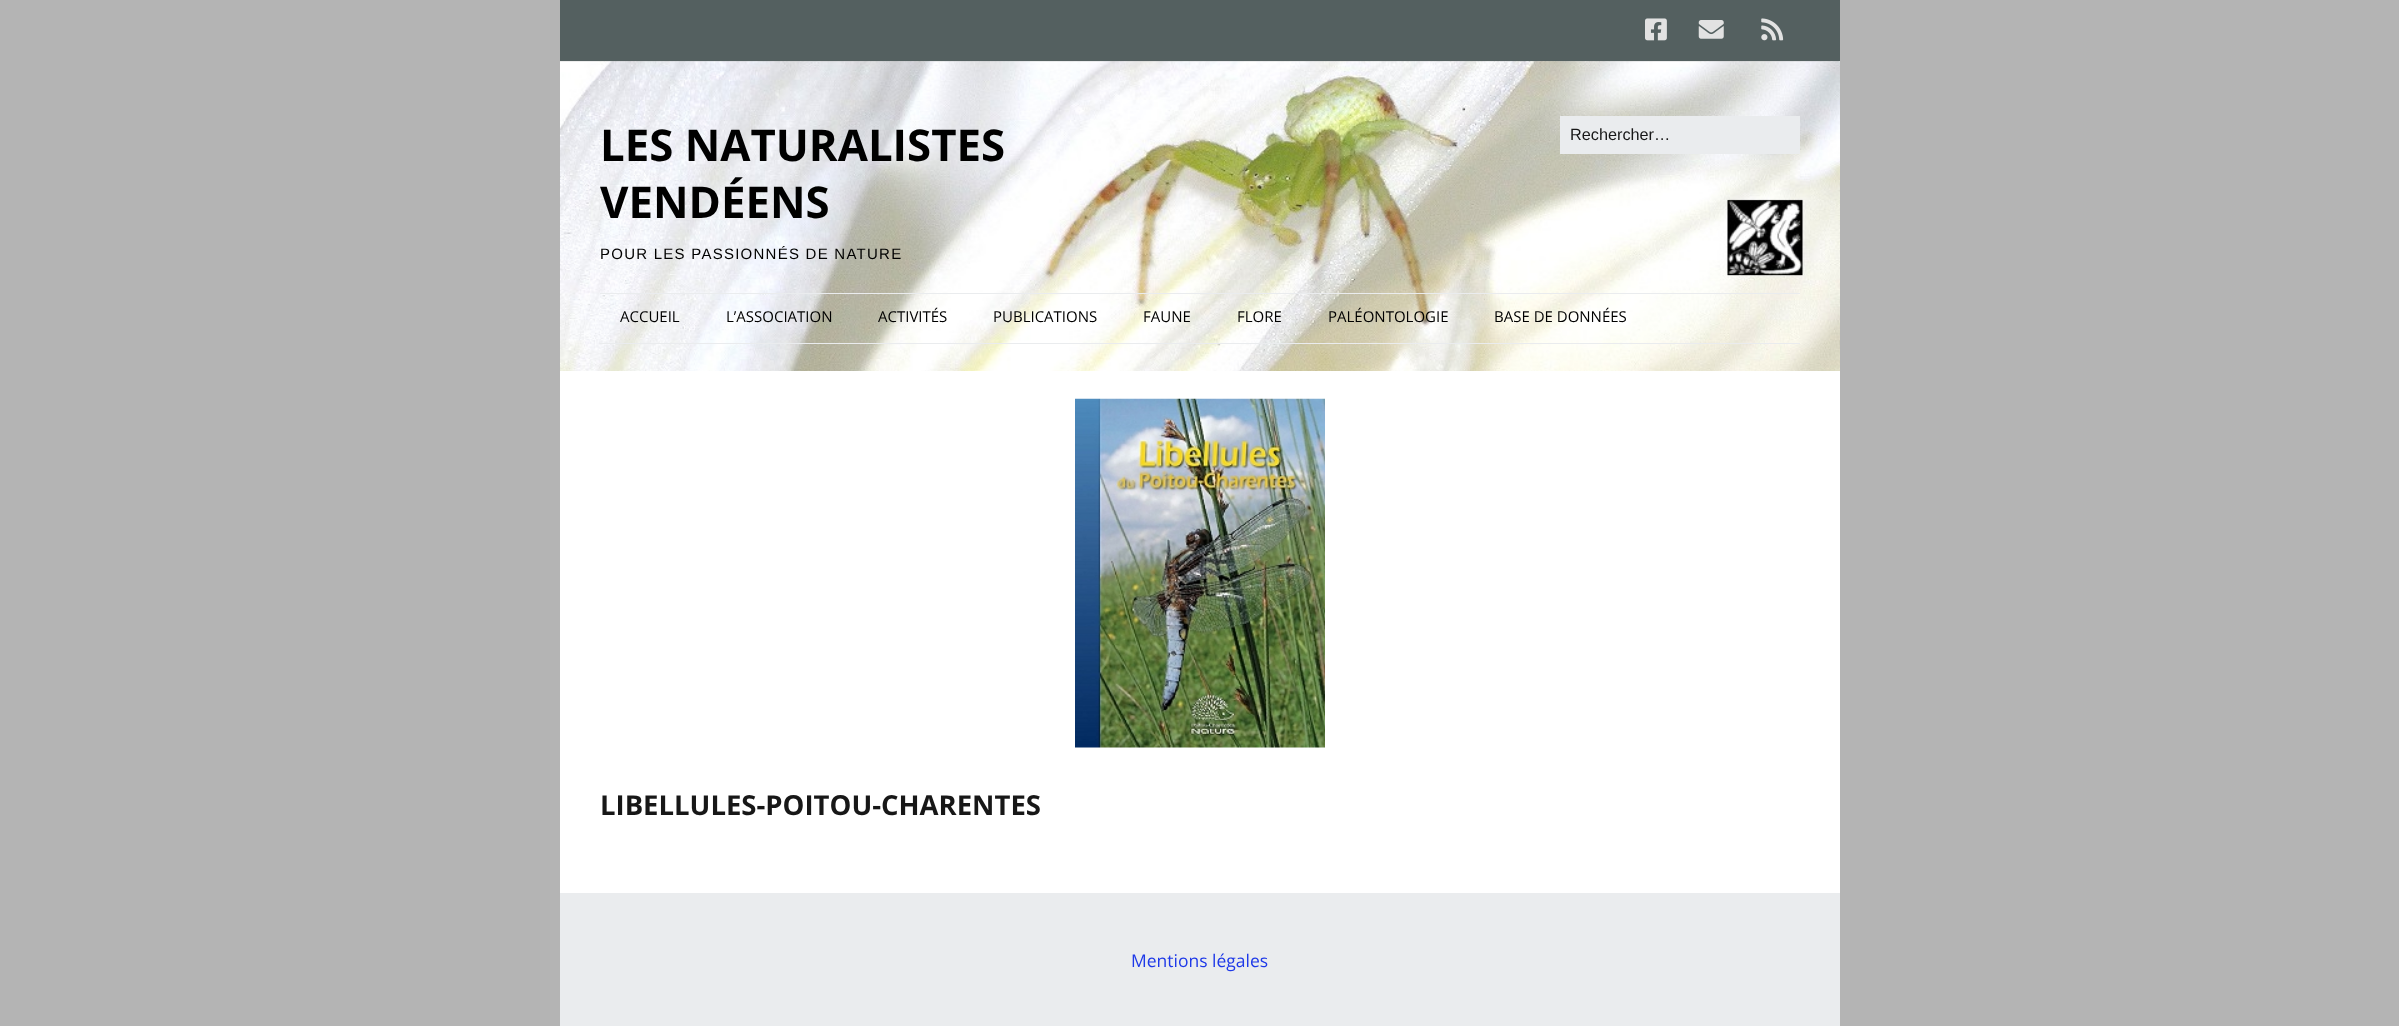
<svg xmlns="http://www.w3.org/2000/svg" width="2399" height="1026">
<rect width="100%" height="100%" fill="#b4b4b4"/>
<rect x="560" width="1280" height="61" fill="#546060"/>
<image x="1645" y="18" width="22" height="23" href="media/1.png"/>
<image x="1698" y="20" width="26" height="19" href="media/2.png"/>
<image x="1761" y="18" width="23" height="23" href="media/3.png"/>
<image x="560" y="61" width="1280" height="310" href="media/4.png"/>
<text x="600" y="161" style="font-family:Open Sans;font-size:43.75px;font-weight:bold;fill:#000">LES NATURALISTES</text>
<text x="600" y="218" style="font-family:Open Sans;font-size:43.75px;font-weight:bold;fill:#000">VENDÉENS</text>
<text x="600" y="259" style="font-family:Liberation Sans;font-size:15px;letter-spacing:1.25px;fill:#000">POUR LES PASSIONNÉS DE NATURE</text>
<rect x="1560" y="116" width="240" height="38" fill="#eaecee"/>
<text x="1570" y="140" style="font-family:Liberation Sans;font-size:16.25px;fill:#171717">Rechercher…</text>
<rect x="600" y="293" width="1200" height="1" fill="#eaecee"/>
<rect x="600" y="343" width="1200" height="1" fill="#eaecee"/>
<text x="620" y="322" style="font-family:Open Sans;font-size:15px;fill:#000">ACCUEIL</text>
<text x="726" y="322" style="font-family:Open Sans;font-size:15px;fill:#000">L’ASSOCIATION</text>
<text x="878" y="322" style="font-family:Open Sans;font-size:15px;fill:#000">ACTIVITÉS</text>
<text x="993" y="322" style="font-family:Open Sans;font-size:15px;fill:#000">PUBLICATIONS</text>
<text x="1143" y="322" style="font-family:Open Sans;font-size:15px;fill:#000">FAUNE</text>
<text x="1237" y="322" style="font-family:Open Sans;font-size:15px;fill:#000">FLORE</text>
<text x="1328" y="322" style="font-family:Open Sans;font-size:15px;fill:#000">PALÉONTOLOGIE</text>
<text x="1494" y="322" style="font-family:Open Sans;font-size:15px;fill:#000">BASE DE DONNÉES</text>
<rect x="560" y="371" width="1280" height="522" fill="#fff"/>
<image x="1075" y="398" width="250" height="350" href="media/5.png"/>
<text x="600" y="815" style="font-family:Open Sans;font-size:27.5px;font-weight:bold;fill:#171717">LIBELLULES-POITOU-CHARENTES</text>
<rect x="560" y="893" width="1280" height="133" fill="#eaecee"/>
<text x="1131" y="967" style="font-family:Open Sans;font-size:17.5px;fill:#1e39e8">Mentions légales</text>
</svg>
